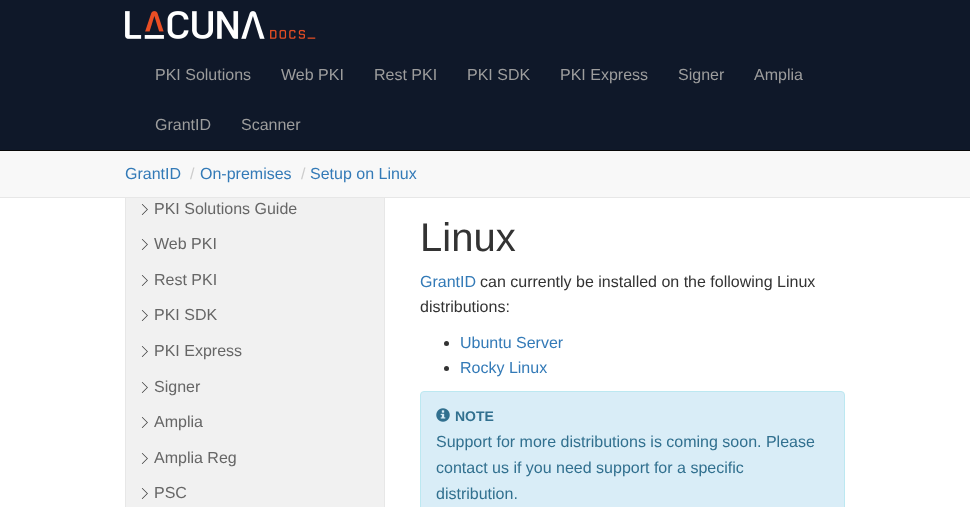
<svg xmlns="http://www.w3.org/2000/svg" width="970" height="507">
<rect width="100%" height="100%" fill="#fff"/>
<rect width="970" height="150" fill="#0f1829"/>
<rect y="150" width="970" height="1" fill="#080808"/>
<image x="125" y="11" width="191" height="28" href="media/1.png"/>
<text x="155" y="80" style="font-family:Liberation Sans;font-size:16px;fill:#9d9d9d">PKI Solutions</text>
<text x="281" y="80" style="font-family:Liberation Sans;font-size:16px;fill:#9d9d9d">Web PKI</text>
<text x="374" y="80" style="font-family:Liberation Sans;font-size:16px;fill:#9d9d9d">Rest PKI</text>
<text x="467" y="80" style="font-family:Liberation Sans;font-size:16px;fill:#9d9d9d">PKI SDK</text>
<text x="560" y="80" style="font-family:Liberation Sans;font-size:16px;fill:#9d9d9d">PKI Express</text>
<text x="678" y="80" style="font-family:Liberation Sans;font-size:16px;fill:#9d9d9d">Signer</text>
<text x="754" y="80" style="font-family:Liberation Sans;font-size:16px;fill:#9d9d9d">Amplia</text>
<text x="155" y="130" style="font-family:Liberation Sans;font-size:16px;fill:#9d9d9d">GrantID</text>
<text x="241" y="130" style="font-family:Liberation Sans;font-size:16px;fill:#9d9d9d">Scanner</text>
<rect y="151" width="970" height="46" fill="#f8f8f8"/>
<rect y="197" width="970" height="1" fill="#e7e7e7"/>
<text x="125" y="179" style="font-family:Liberation Sans;font-size:16px;fill:#337ab7">GrantID</text>
<text x="190" y="179" style="font-family:Liberation Sans;font-size:16px;fill:#ccc">/</text>
<text x="200" y="179" style="font-family:Liberation Sans;font-size:16px;fill:#337ab7">On-premises</text>
<text x="301" y="179" style="font-family:Liberation Sans;font-size:16px;fill:#ccc">/</text>
<text x="310" y="179" style="font-family:Liberation Sans;font-size:16px;fill:#337ab7">Setup on Linux</text>
<rect x="126" y="198" width="258" height="309" fill="#f1f1f1"/>
<rect x="384" y="198" width="1" height="309" fill="#e7e7e7"/>
<rect x="125" y="198" width="1" height="309" fill="#e7e7e7"/>
<image x="141" y="204" width="7" height="11" href="media/2.png"/>
<text x="154" y="214" style="font-family:Liberation Sans;font-size:16px;fill:#666">PKI Solutions Guide</text>
<image x="141" y="239" width="7" height="11" href="media/2.png"/>
<text x="154" y="249" style="font-family:Liberation Sans;font-size:16px;fill:#666">Web PKI</text>
<image x="141" y="275" width="7" height="11" href="media/2.png"/>
<text x="154" y="285" style="font-family:Liberation Sans;font-size:16px;fill:#666">Rest PKI</text>
<image x="141" y="310" width="7" height="11" href="media/2.png"/>
<text x="154" y="320" style="font-family:Liberation Sans;font-size:16px;fill:#666">PKI SDK</text>
<image x="141" y="346" width="7" height="11" href="media/2.png"/>
<text x="154" y="356" style="font-family:Liberation Sans;font-size:16px;fill:#666">PKI Express</text>
<image x="141" y="382" width="7" height="11" href="media/2.png"/>
<text x="154" y="392" style="font-family:Liberation Sans;font-size:16px;fill:#666">Signer</text>
<image x="141" y="417" width="7" height="11" href="media/2.png"/>
<text x="154" y="427" style="font-family:Liberation Sans;font-size:16px;fill:#666">Amplia</text>
<image x="141" y="453" width="7" height="11" href="media/2.png"/>
<text x="154" y="463" style="font-family:Liberation Sans;font-size:16px;fill:#666">Amplia Reg</text>
<image x="141" y="488" width="7" height="11" href="media/2.png"/>
<text x="154" y="498" style="font-family:Liberation Sans;font-size:16px;fill:#666">PSC</text>
<text x="420" y="251" style="font-family:Liberation Sans;font-size:40px;fill:#333">Linux</text>
<text x="420" y="287" style="font-family:Liberation Sans;font-size:16px;fill:#337ab7">GrantID</text>
<text x="480" y="287" style="font-family:Liberation Sans;font-size:16px;fill:#333">can currently be installed on the following Linux</text>
<text x="420" y="312" style="font-family:Liberation Sans;font-size:16px;fill:#333">distributions:</text>
<circle cx="446.5" cy="343.5" r="2.5" fill="#333"/>
<text x="460" y="348" style="font-family:Liberation Sans;font-size:16px;fill:#337ab7">Ubuntu Server</text>
<circle cx="446.5" cy="368.5" r="2.5" fill="#333"/>
<text x="460" y="373" style="font-family:Liberation Sans;font-size:16px;fill:#337ab7">Rocky Linux</text>
<rect x="420.5" y="391.5" width="424" height="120" rx="3.5" fill="#d9edf7" stroke="#bce8f1"/>
<image x="436" y="408" width="14" height="14" href="media/3.png"/>
<text x="455" y="421" style="font-family:Liberation Sans;font-size:14px;font-weight:bold;fill:#31708f">NOTE</text>
<text x="436" y="447" style="font-family:Liberation Sans;font-size:16px;fill:#31708f">Support for more distributions is coming soon. Please</text>
<text x="436" y="473" style="font-family:Liberation Sans;font-size:16px;fill:#31708f">contact us if you need support for a specific</text>
<text x="436" y="499" style="font-family:Liberation Sans;font-size:16px;fill:#31708f">distribution.</text>
</svg>
